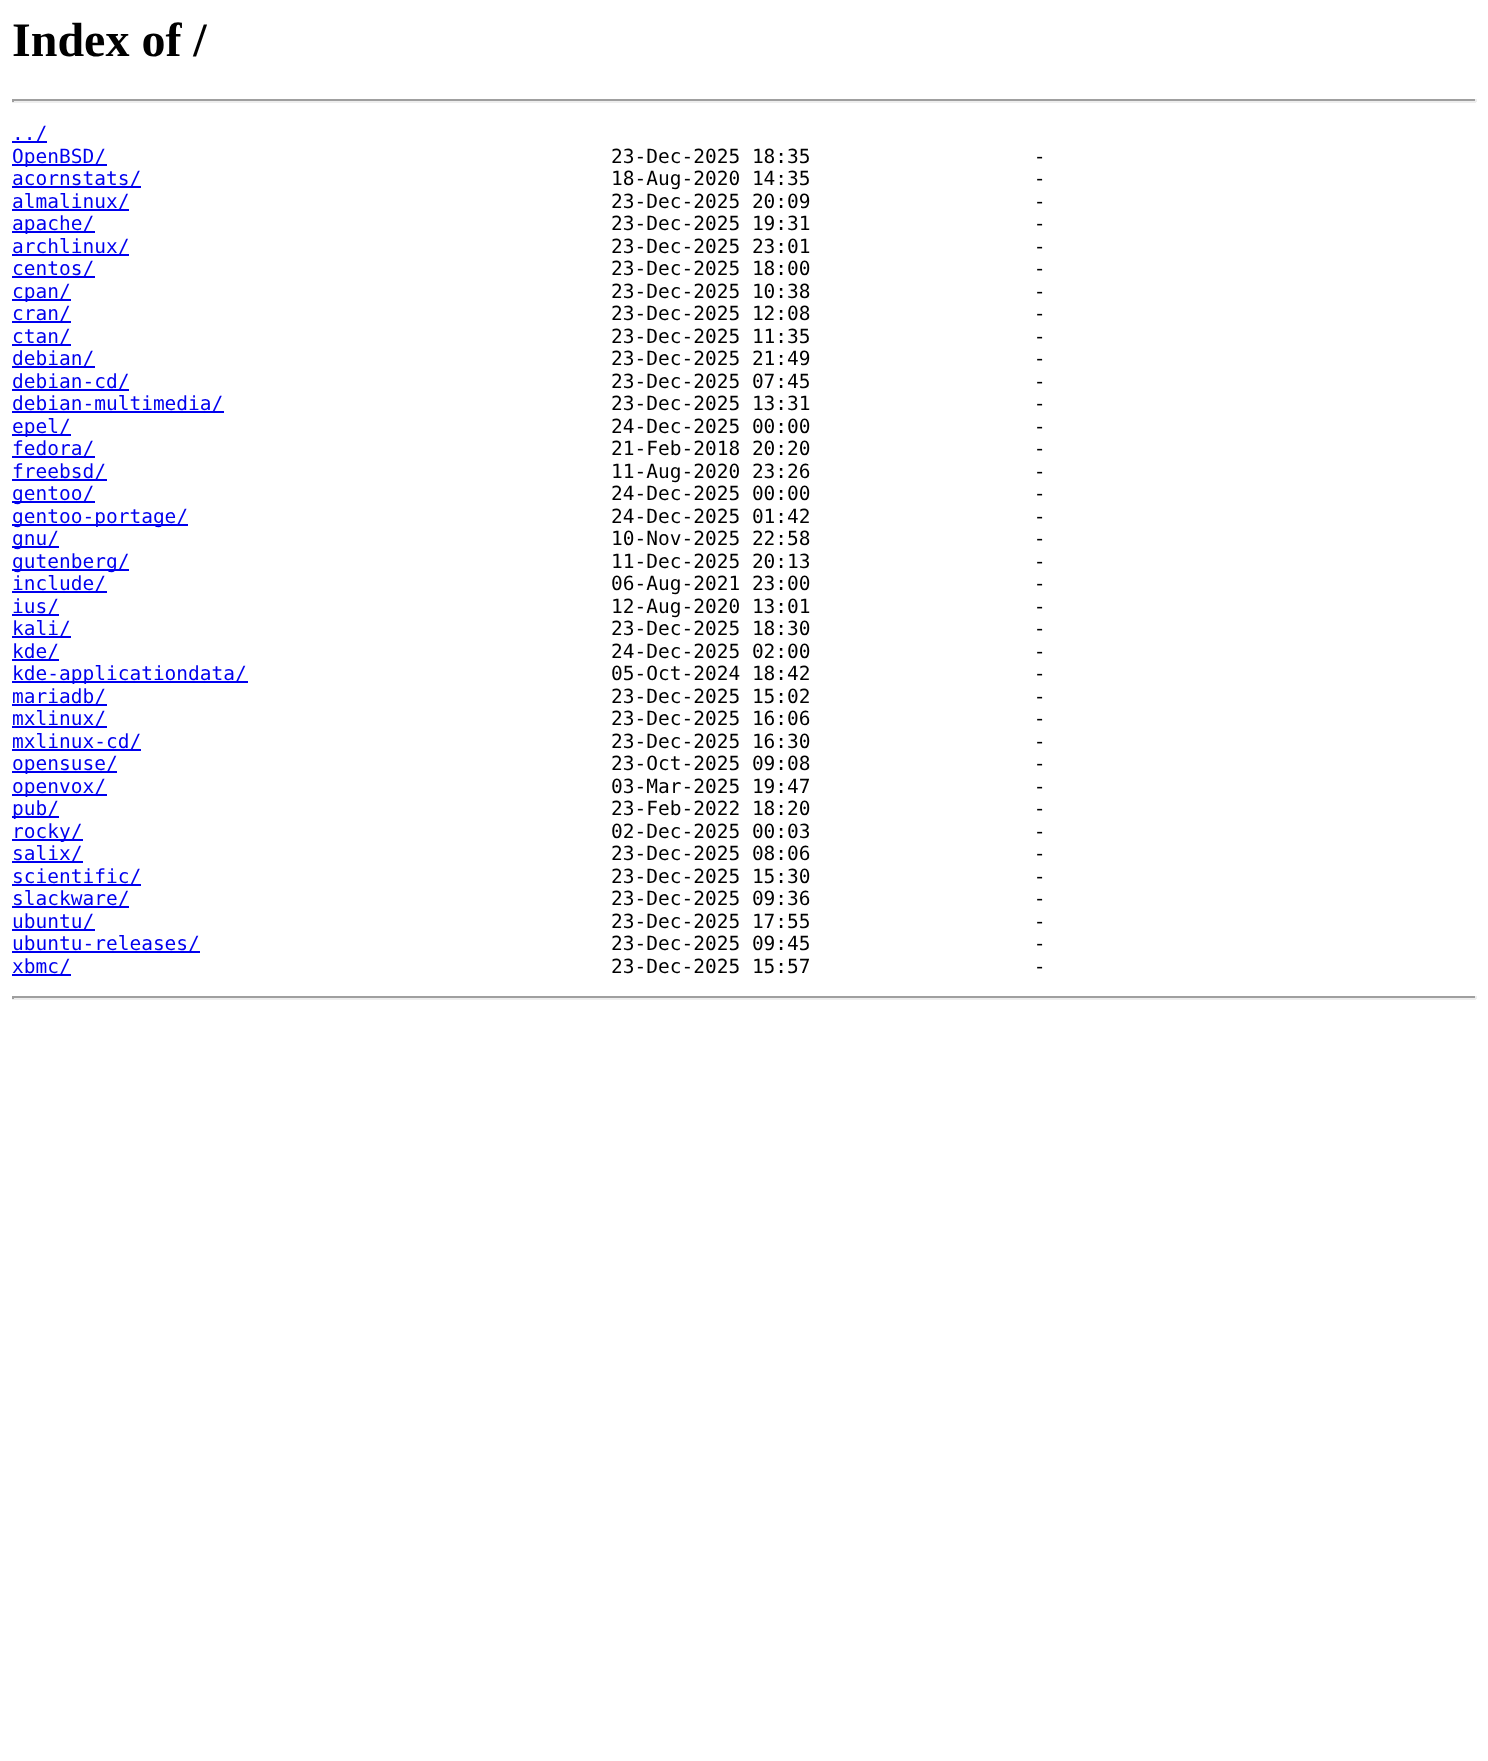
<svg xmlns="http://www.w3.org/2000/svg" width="1488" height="1761">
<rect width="100%" height="100%" fill="#fff"/>
<text x="12" y="56" style="font-family:Liberation Serif;font-size:48px;font-weight:bold;fill:#000">Index of /</text>
<rect x="12" y="99" width="1464" height="2" fill="#9f9f9f"/>
<rect x="1475" y="99" width="2" height="3" fill="#eee"/>
<rect x="12" y="101" width="1464" height="2" fill="#eee"/>
<rect x="12" y="99" width="2" height="3" fill="#9f9f9f"/>
<rect x="12" y="141" width="35" height="2" fill="#00e"/>
<text x="12" y="140" style="font-family:DejaVu Sans Mono;font-size:19.5px;fill:#00e">../</text>
<rect x="12" y="164" width="95" height="2" fill="#00e"/>
<text x="12" y="163" style="font-family:DejaVu Sans Mono;font-size:19.5px;fill:#00e">OpenBSD/</text>
<text x="611" y="163" style="font-family:DejaVu Sans Mono;font-size:19.5px;fill:#000" xml:space="preserve">23-Dec-2025 18:35                   -</text>
<rect x="12" y="186" width="129" height="2" fill="#00e"/>
<text x="12" y="185" style="font-family:DejaVu Sans Mono;font-size:19.5px;fill:#00e">acornstats/</text>
<text x="611" y="185" style="font-family:DejaVu Sans Mono;font-size:19.5px;fill:#000" xml:space="preserve">18-Aug-2020 14:35                   -</text>
<rect x="12" y="209" width="117" height="2" fill="#00e"/>
<text x="12" y="208" style="font-family:DejaVu Sans Mono;font-size:19.5px;fill:#00e">almalinux/</text>
<text x="611" y="208" style="font-family:DejaVu Sans Mono;font-size:19.5px;fill:#000" xml:space="preserve">23-Dec-2025 20:09                   -</text>
<rect x="12" y="231" width="83" height="2" fill="#00e"/>
<text x="12" y="230" style="font-family:DejaVu Sans Mono;font-size:19.5px;fill:#00e">apache/</text>
<text x="611" y="230" style="font-family:DejaVu Sans Mono;font-size:19.5px;fill:#000" xml:space="preserve">23-Dec-2025 19:31                   -</text>
<rect x="12" y="254" width="117" height="2" fill="#00e"/>
<text x="12" y="253" style="font-family:DejaVu Sans Mono;font-size:19.5px;fill:#00e">archlinux/</text>
<text x="611" y="253" style="font-family:DejaVu Sans Mono;font-size:19.5px;fill:#000" xml:space="preserve">23-Dec-2025 23:01                   -</text>
<rect x="12" y="276" width="83" height="2" fill="#00e"/>
<text x="12" y="275" style="font-family:DejaVu Sans Mono;font-size:19.5px;fill:#00e">centos/</text>
<text x="611" y="275" style="font-family:DejaVu Sans Mono;font-size:19.5px;fill:#000" xml:space="preserve">23-Dec-2025 18:00                   -</text>
<rect x="12" y="299" width="59" height="2" fill="#00e"/>
<text x="12" y="298" style="font-family:DejaVu Sans Mono;font-size:19.5px;fill:#00e">cpan/</text>
<text x="611" y="298" style="font-family:DejaVu Sans Mono;font-size:19.5px;fill:#000" xml:space="preserve">23-Dec-2025 10:38                   -</text>
<rect x="12" y="321" width="59" height="2" fill="#00e"/>
<text x="12" y="320" style="font-family:DejaVu Sans Mono;font-size:19.5px;fill:#00e">cran/</text>
<text x="611" y="320" style="font-family:DejaVu Sans Mono;font-size:19.5px;fill:#000" xml:space="preserve">23-Dec-2025 12:08                   -</text>
<rect x="12" y="344" width="59" height="2" fill="#00e"/>
<text x="12" y="343" style="font-family:DejaVu Sans Mono;font-size:19.5px;fill:#00e">ctan/</text>
<text x="611" y="343" style="font-family:DejaVu Sans Mono;font-size:19.5px;fill:#000" xml:space="preserve">23-Dec-2025 11:35                   -</text>
<rect x="12" y="366" width="83" height="2" fill="#00e"/>
<text x="12" y="365" style="font-family:DejaVu Sans Mono;font-size:19.5px;fill:#00e">debian/</text>
<text x="611" y="365" style="font-family:DejaVu Sans Mono;font-size:19.5px;fill:#000" xml:space="preserve">23-Dec-2025 21:49                   -</text>
<rect x="12" y="389" width="117" height="2" fill="#00e"/>
<text x="12" y="388" style="font-family:DejaVu Sans Mono;font-size:19.5px;fill:#00e">debian-cd/</text>
<text x="611" y="388" style="font-family:DejaVu Sans Mono;font-size:19.5px;fill:#000" xml:space="preserve">23-Dec-2025 07:45                   -</text>
<rect x="12" y="411" width="212" height="2" fill="#00e"/>
<text x="12" y="410" style="font-family:DejaVu Sans Mono;font-size:19.5px;fill:#00e">debian-multimedia/</text>
<text x="611" y="410" style="font-family:DejaVu Sans Mono;font-size:19.5px;fill:#000" xml:space="preserve">23-Dec-2025 13:31                   -</text>
<rect x="12" y="434" width="59" height="2" fill="#00e"/>
<text x="12" y="433" style="font-family:DejaVu Sans Mono;font-size:19.5px;fill:#00e">epel/</text>
<text x="611" y="433" style="font-family:DejaVu Sans Mono;font-size:19.5px;fill:#000" xml:space="preserve">24-Dec-2025 00:00                   -</text>
<rect x="12" y="456" width="83" height="2" fill="#00e"/>
<text x="12" y="455" style="font-family:DejaVu Sans Mono;font-size:19.5px;fill:#00e">fedora/</text>
<text x="611" y="455" style="font-family:DejaVu Sans Mono;font-size:19.5px;fill:#000" xml:space="preserve">21-Feb-2018 20:20                   -</text>
<rect x="12" y="479" width="95" height="2" fill="#00e"/>
<text x="12" y="478" style="font-family:DejaVu Sans Mono;font-size:19.5px;fill:#00e">freebsd/</text>
<text x="611" y="478" style="font-family:DejaVu Sans Mono;font-size:19.5px;fill:#000" xml:space="preserve">11-Aug-2020 23:26                   -</text>
<rect x="12" y="501" width="83" height="2" fill="#00e"/>
<text x="12" y="500" style="font-family:DejaVu Sans Mono;font-size:19.5px;fill:#00e">gentoo/</text>
<text x="611" y="500" style="font-family:DejaVu Sans Mono;font-size:19.5px;fill:#000" xml:space="preserve">24-Dec-2025 00:00                   -</text>
<rect x="12" y="524" width="176" height="2" fill="#00e"/>
<text x="12" y="523" style="font-family:DejaVu Sans Mono;font-size:19.5px;fill:#00e">gentoo-portage/</text>
<text x="611" y="523" style="font-family:DejaVu Sans Mono;font-size:19.5px;fill:#000" xml:space="preserve">24-Dec-2025 01:42                   -</text>
<rect x="12" y="546" width="47" height="2" fill="#00e"/>
<text x="12" y="545" style="font-family:DejaVu Sans Mono;font-size:19.5px;fill:#00e">gnu/</text>
<text x="611" y="545" style="font-family:DejaVu Sans Mono;font-size:19.5px;fill:#000" xml:space="preserve">10-Nov-2025 22:58                   -</text>
<rect x="12" y="569" width="117" height="2" fill="#00e"/>
<text x="12" y="568" style="font-family:DejaVu Sans Mono;font-size:19.5px;fill:#00e">gutenberg/</text>
<text x="611" y="568" style="font-family:DejaVu Sans Mono;font-size:19.5px;fill:#000" xml:space="preserve">11-Dec-2025 20:13                   -</text>
<rect x="12" y="591" width="95" height="2" fill="#00e"/>
<text x="12" y="590" style="font-family:DejaVu Sans Mono;font-size:19.5px;fill:#00e">include/</text>
<text x="611" y="590" style="font-family:DejaVu Sans Mono;font-size:19.5px;fill:#000" xml:space="preserve">06-Aug-2021 23:00                   -</text>
<rect x="12" y="614" width="47" height="2" fill="#00e"/>
<text x="12" y="613" style="font-family:DejaVu Sans Mono;font-size:19.5px;fill:#00e">ius/</text>
<text x="611" y="613" style="font-family:DejaVu Sans Mono;font-size:19.5px;fill:#000" xml:space="preserve">12-Aug-2020 13:01                   -</text>
<rect x="12" y="636" width="59" height="2" fill="#00e"/>
<text x="12" y="635" style="font-family:DejaVu Sans Mono;font-size:19.5px;fill:#00e">kali/</text>
<text x="611" y="635" style="font-family:DejaVu Sans Mono;font-size:19.5px;fill:#000" xml:space="preserve">23-Dec-2025 18:30                   -</text>
<rect x="12" y="659" width="47" height="2" fill="#00e"/>
<text x="12" y="658" style="font-family:DejaVu Sans Mono;font-size:19.5px;fill:#00e">kde/</text>
<text x="611" y="658" style="font-family:DejaVu Sans Mono;font-size:19.5px;fill:#000" xml:space="preserve">24-Dec-2025 02:00                   -</text>
<rect x="12" y="681" width="236" height="2" fill="#00e"/>
<text x="12" y="680" style="font-family:DejaVu Sans Mono;font-size:19.5px;fill:#00e">kde-applicationdata/</text>
<text x="611" y="680" style="font-family:DejaVu Sans Mono;font-size:19.5px;fill:#000" xml:space="preserve">05-Oct-2024 18:42                   -</text>
<rect x="12" y="704" width="95" height="2" fill="#00e"/>
<text x="12" y="703" style="font-family:DejaVu Sans Mono;font-size:19.5px;fill:#00e">mariadb/</text>
<text x="611" y="703" style="font-family:DejaVu Sans Mono;font-size:19.5px;fill:#000" xml:space="preserve">23-Dec-2025 15:02                   -</text>
<rect x="12" y="726" width="95" height="2" fill="#00e"/>
<text x="12" y="725" style="font-family:DejaVu Sans Mono;font-size:19.5px;fill:#00e">mxlinux/</text>
<text x="611" y="725" style="font-family:DejaVu Sans Mono;font-size:19.5px;fill:#000" xml:space="preserve">23-Dec-2025 16:06                   -</text>
<rect x="12" y="749" width="129" height="2" fill="#00e"/>
<text x="12" y="748" style="font-family:DejaVu Sans Mono;font-size:19.5px;fill:#00e">mxlinux-cd/</text>
<text x="611" y="748" style="font-family:DejaVu Sans Mono;font-size:19.5px;fill:#000" xml:space="preserve">23-Dec-2025 16:30                   -</text>
<rect x="12" y="771" width="105" height="2" fill="#00e"/>
<text x="12" y="770" style="font-family:DejaVu Sans Mono;font-size:19.5px;fill:#00e">opensuse/</text>
<text x="611" y="770" style="font-family:DejaVu Sans Mono;font-size:19.5px;fill:#000" xml:space="preserve">23-Oct-2025 09:08                   -</text>
<rect x="12" y="794" width="95" height="2" fill="#00e"/>
<text x="12" y="793" style="font-family:DejaVu Sans Mono;font-size:19.5px;fill:#00e">openvox/</text>
<text x="611" y="793" style="font-family:DejaVu Sans Mono;font-size:19.5px;fill:#000" xml:space="preserve">03-Mar-2025 19:47                   -</text>
<rect x="12" y="816" width="47" height="2" fill="#00e"/>
<text x="12" y="815" style="font-family:DejaVu Sans Mono;font-size:19.5px;fill:#00e">pub/</text>
<text x="611" y="815" style="font-family:DejaVu Sans Mono;font-size:19.5px;fill:#000" xml:space="preserve">23-Feb-2022 18:20                   -</text>
<rect x="12" y="839" width="71" height="2" fill="#00e"/>
<text x="12" y="838" style="font-family:DejaVu Sans Mono;font-size:19.5px;fill:#00e">rocky/</text>
<text x="611" y="838" style="font-family:DejaVu Sans Mono;font-size:19.5px;fill:#000" xml:space="preserve">02-Dec-2025 00:03                   -</text>
<rect x="12" y="861" width="71" height="2" fill="#00e"/>
<text x="12" y="860" style="font-family:DejaVu Sans Mono;font-size:19.5px;fill:#00e">salix/</text>
<text x="611" y="860" style="font-family:DejaVu Sans Mono;font-size:19.5px;fill:#000" xml:space="preserve">23-Dec-2025 08:06                   -</text>
<rect x="12" y="884" width="129" height="2" fill="#00e"/>
<text x="12" y="883" style="font-family:DejaVu Sans Mono;font-size:19.5px;fill:#00e">scientific/</text>
<text x="611" y="883" style="font-family:DejaVu Sans Mono;font-size:19.5px;fill:#000" xml:space="preserve">23-Dec-2025 15:30                   -</text>
<rect x="12" y="906" width="117" height="2" fill="#00e"/>
<text x="12" y="905" style="font-family:DejaVu Sans Mono;font-size:19.5px;fill:#00e">slackware/</text>
<text x="611" y="905" style="font-family:DejaVu Sans Mono;font-size:19.5px;fill:#000" xml:space="preserve">23-Dec-2025 09:36                   -</text>
<rect x="12" y="929" width="83" height="2" fill="#00e"/>
<text x="12" y="928" style="font-family:DejaVu Sans Mono;font-size:19.5px;fill:#00e">ubuntu/</text>
<text x="611" y="928" style="font-family:DejaVu Sans Mono;font-size:19.5px;fill:#000" xml:space="preserve">23-Dec-2025 17:55                   -</text>
<rect x="12" y="951" width="188" height="2" fill="#00e"/>
<text x="12" y="950" style="font-family:DejaVu Sans Mono;font-size:19.5px;fill:#00e">ubuntu-releases/</text>
<text x="611" y="950" style="font-family:DejaVu Sans Mono;font-size:19.5px;fill:#000" xml:space="preserve">23-Dec-2025 09:45                   -</text>
<rect x="12" y="974" width="59" height="2" fill="#00e"/>
<text x="12" y="973" style="font-family:DejaVu Sans Mono;font-size:19.5px;fill:#00e">xbmc/</text>
<text x="611" y="973" style="font-family:DejaVu Sans Mono;font-size:19.5px;fill:#000" xml:space="preserve">23-Dec-2025 15:57                   -</text>
<rect x="12" y="996" width="1464" height="2" fill="#9f9f9f"/>
<rect x="1475" y="996" width="2" height="3" fill="#eee"/>
<rect x="12" y="998" width="1464" height="2" fill="#eee"/>
<rect x="12" y="996" width="2" height="3" fill="#9f9f9f"/>
</svg>
